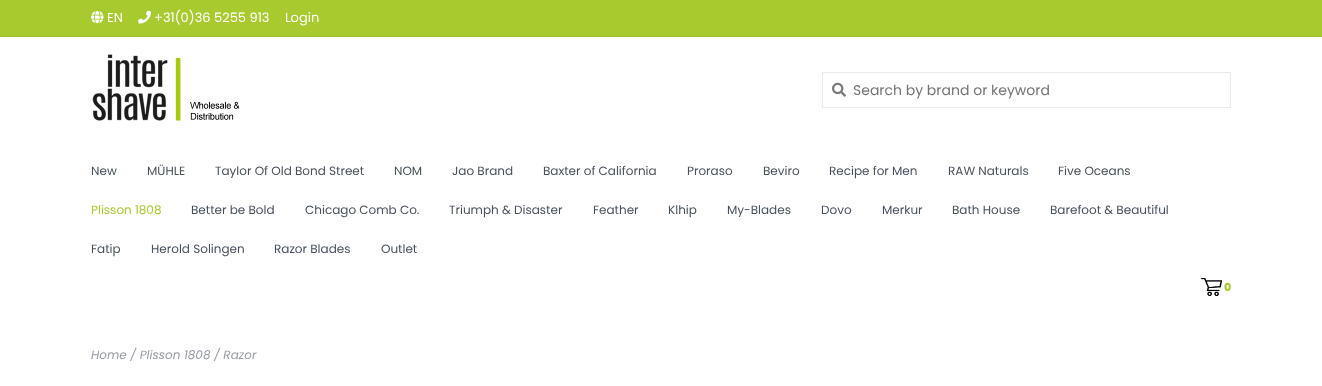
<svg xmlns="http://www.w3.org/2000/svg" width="1322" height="386">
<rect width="100%" height="100%" fill="#fff"/>
<rect width="1322" height="36" fill="#a7ca2e"/>
<rect y="36" width="1322" height="1" fill="#9bbb2a"/>
<image x="91" y="10" width="13" height="14" href="media/1.png"/>
<text x="107" y="22" style="font-family:Poppins;font-size:13px;fill:#fff">EN</text>
<image x="138" y="10" width="13" height="14" href="media/2.png"/>
<text x="154" y="22" style="font-family:Poppins;font-size:13px;fill:#fff">+31(0)36 5255 913</text>
<text x="285" y="22" style="font-family:Poppins;font-size:13px;fill:#fff">Login</text>
<image x="92" y="54" width="148" height="67" href="media/3.png"/>
<rect x="822.5" y="72.5" width="408" height="35" fill="none" stroke="#eaeaea"/>
<image x="832" y="82" width="14" height="15" href="media/4.png"/>
<text x="853" y="95" style="font-family:Poppins;font-size:14px;fill:#757575">Search by brand or keyword</text>
<text x="91" y="175" style="font-family:Poppins;font-size:12px;fill:#48515e">New</text>
<text x="147" y="175" style="font-family:Poppins;font-size:12px;fill:#48515e">MÜHLE</text>
<text x="215" y="175" style="font-family:Poppins;font-size:12px;fill:#48515e">Taylor Of Old Bond Street</text>
<text x="394" y="175" style="font-family:Poppins;font-size:12px;fill:#48515e">NOM</text>
<text x="452" y="175" style="font-family:Poppins;font-size:12px;fill:#48515e">Jao Brand</text>
<text x="543" y="175" style="font-family:Poppins;font-size:12px;fill:#48515e">Baxter of California</text>
<text x="687" y="175" style="font-family:Poppins;font-size:12px;fill:#48515e">Proraso</text>
<text x="763" y="175" style="font-family:Poppins;font-size:12px;fill:#48515e">Beviro</text>
<text x="829" y="175" style="font-family:Poppins;font-size:12px;fill:#48515e">Recipe for Men</text>
<text x="948" y="175" style="font-family:Poppins;font-size:12px;fill:#48515e">RAW Naturals</text>
<text x="1058" y="175" style="font-family:Poppins;font-size:12px;fill:#48515e">Five Oceans</text>
<text x="91" y="214" style="font-family:Poppins;font-size:12px;fill:#a7ca2e">Plisson 1808</text>
<text x="191" y="214" style="font-family:Poppins;font-size:12px;fill:#48515e">Better be Bold</text>
<text x="305" y="214" style="font-family:Poppins;font-size:12px;fill:#48515e">Chicago Comb Co.</text>
<text x="449" y="214" style="font-family:Poppins;font-size:12px;fill:#48515e">Triumph &amp; Disaster</text>
<text x="593" y="214" style="font-family:Poppins;font-size:12px;fill:#48515e">Feather</text>
<text x="668" y="214" style="font-family:Poppins;font-size:12px;fill:#48515e">Klhip</text>
<text x="727" y="214" style="font-family:Poppins;font-size:12px;fill:#48515e">My-Blades</text>
<text x="821" y="214" style="font-family:Poppins;font-size:12px;fill:#48515e">Dovo</text>
<text x="882" y="214" style="font-family:Poppins;font-size:12px;fill:#48515e">Merkur</text>
<text x="952" y="214" style="font-family:Poppins;font-size:12px;fill:#48515e">Bath House</text>
<text x="1050" y="214" style="font-family:Poppins;font-size:12px;fill:#48515e">Barefoot &amp; Beautiful</text>
<text x="91" y="253" style="font-family:Poppins;font-size:12px;fill:#48515e">Fatip</text>
<text x="151" y="253" style="font-family:Poppins;font-size:12px;fill:#48515e">Herold Solingen</text>
<text x="274" y="253" style="font-family:Poppins;font-size:12px;fill:#48515e">Razor Blades</text>
<text x="381" y="253" style="font-family:Poppins;font-size:12px;fill:#48515e">Outlet</text>
<image x="1201" y="278" width="21" height="18" href="media/5.png"/>
<text x="1224" y="291" style="font-family:Poppins;font-size:11px;font-weight:800;fill:#a7ca2e">0</text>
<text x="91" y="359" style="font-family:Poppins;font-size:12px;font-style:italic;fill:#989aa6">Home / Plisson 1808 / Razor</text>
</svg>
